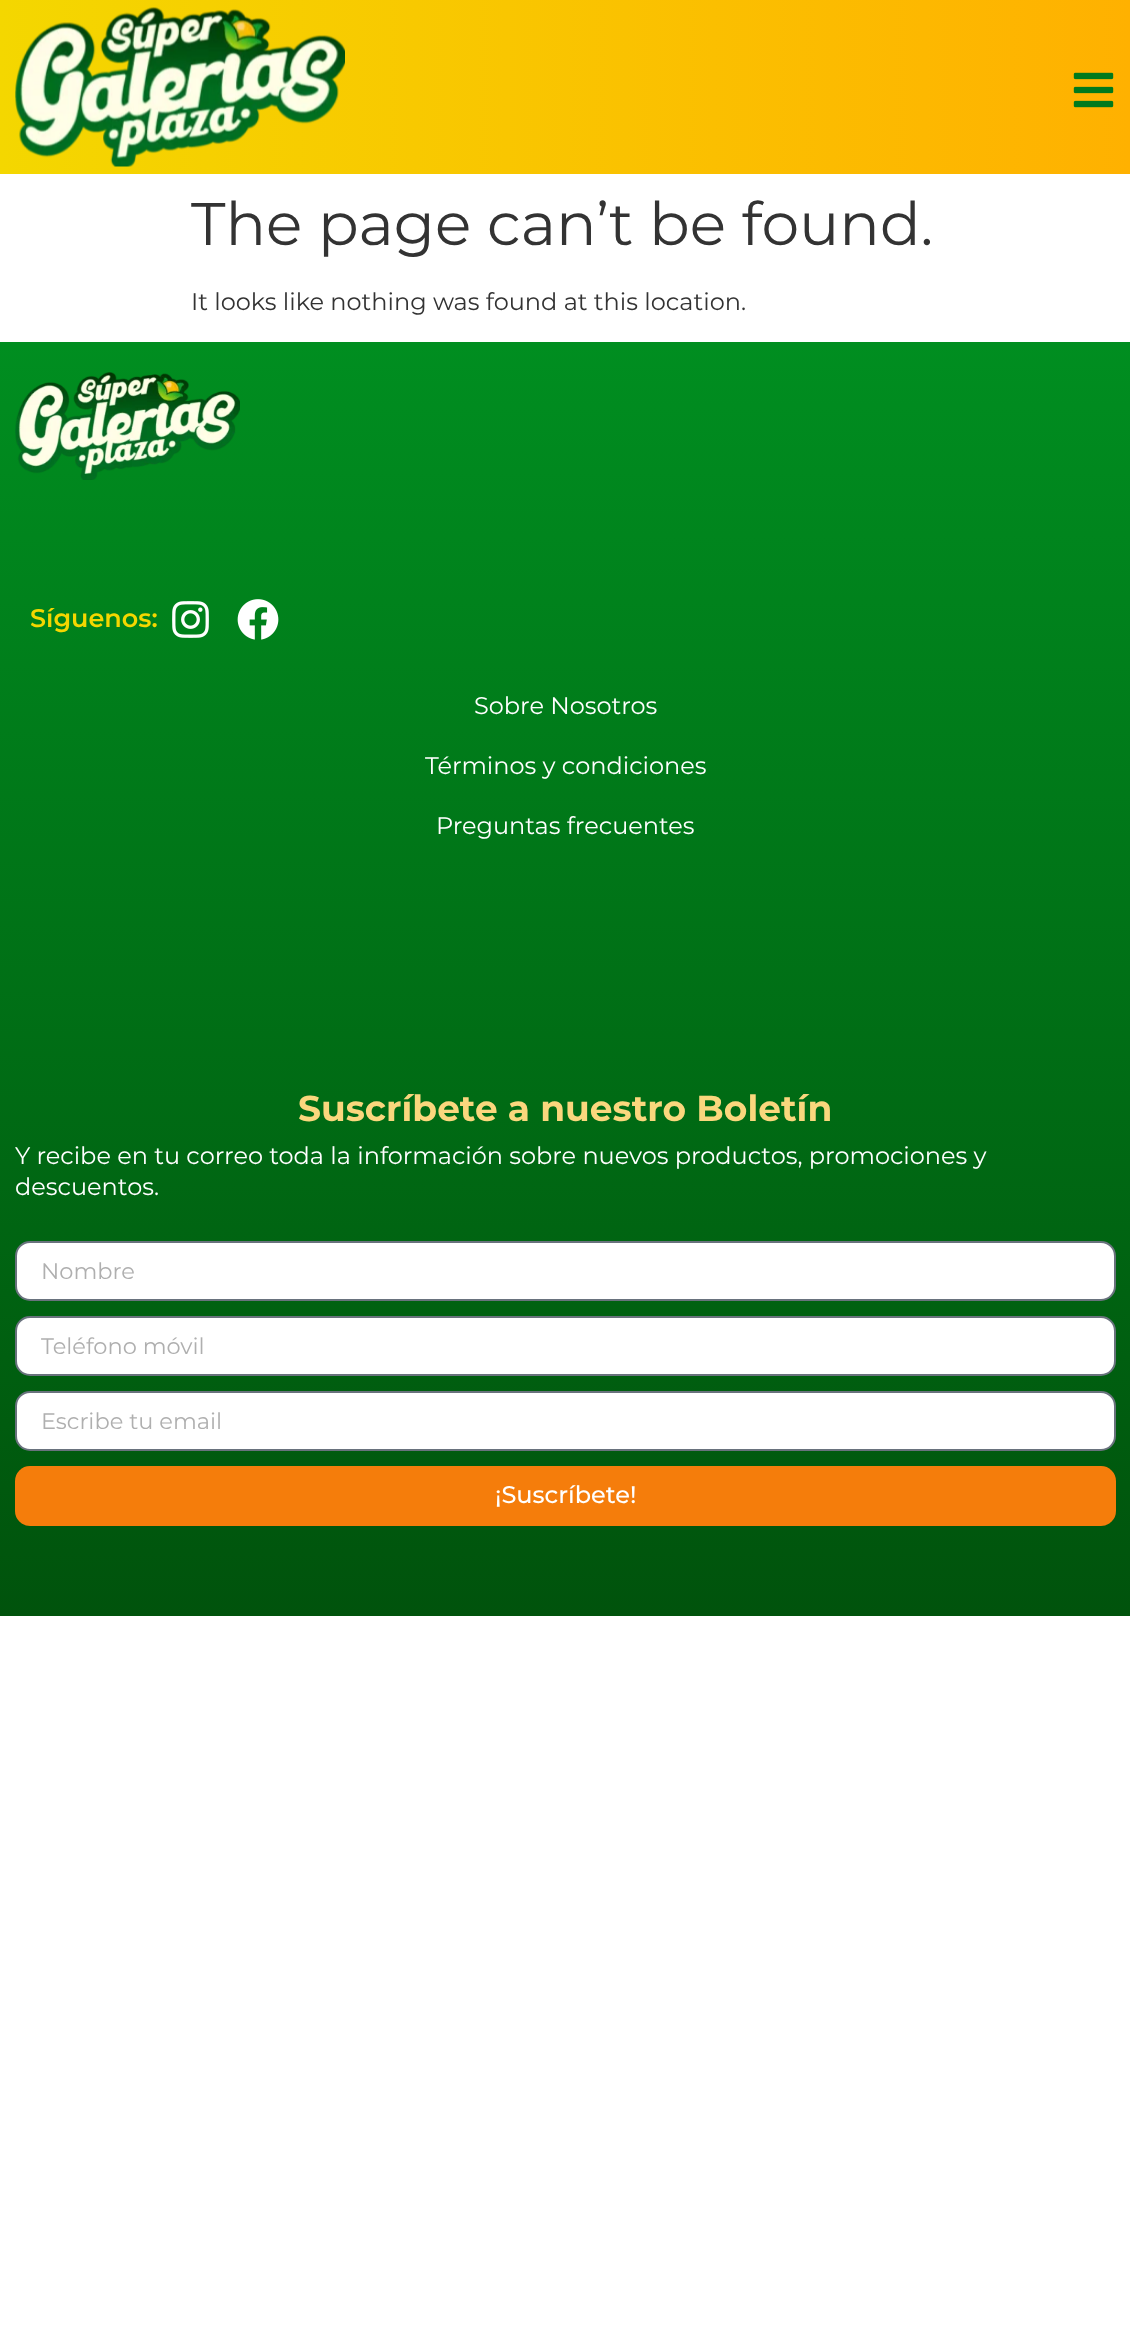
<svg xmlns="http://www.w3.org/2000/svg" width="1130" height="2340">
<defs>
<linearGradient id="g1" gradientUnits="userSpaceOnUse" x1="0" y1="87" x2="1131" y2="87"><stop offset="0" stop-color="#f4d700"/><stop offset="1" stop-color="#ffb100"/></linearGradient>
<linearGradient id="g2" gradientUnits="userSpaceOnUse" x1="565" y1="342" x2="566" y2="1616"><stop offset="0" stop-color="#008e20"/><stop offset="1" stop-color="#00530c"/></linearGradient>
</defs>
<rect width="100%" height="100%" fill="#fff"/>
<rect width="1130" height="174" fill="url(#g1)"/>
<image x="15" y="7" width="330" height="160" href="media/1.png"/>
<image x="1073" y="72" width="41" height="36" href="media/2.png"/>
<text x="191" y="245" style="font-family:Montserrat;font-size:60px;fill:#333">The page can’t be found.</text>
<text x="191" y="310" style="font-family:Montserrat;font-size:24px;fill:#333">It looks like nothing was found at this location.</text>
<rect y="342" width="1130" height="1274" fill="url(#g2)"/>
<image x="15" y="372" width="225" height="108" href="media/3.png"/>
<text x="30" y="627" style="font-family:Montserrat;font-size:25.5px;font-weight:600;fill:#f4d700">Síguenos:</text>
<image x="172" y="601" width="37" height="37" href="media/4.png"/>
<image x="237" y="599" width="42" height="41" href="media/5.png"/>
<text x="474" y="714" style="font-family:Montserrat;font-size:24px;fill:#fff">Sobre Nosotros</text>
<text x="425" y="774" style="font-family:Montserrat;font-size:24px;fill:#fff">Términos y condiciones</text>
<text x="436" y="834" style="font-family:Montserrat;font-size:24px;fill:#fff">Preguntas frecuentes</text>
<text x="298" y="1121" style="font-family:Montserrat;font-size:36px;font-weight:bold;fill:#fad77d">Suscríbete a nuestro Boletín</text>
<text x="15" y="1164" style="font-family:Montserrat;font-size:24px;fill:#fff">Y recibe en tu correo toda la información sobre nuevos productos, promociones y</text>
<text x="15" y="1195" style="font-family:Montserrat;font-size:24px;fill:#fff">descuentos.</text>
<rect x="16" y="1242" width="1099" height="58" rx="14" fill="#fff" stroke="#69727d" stroke-width="2"/>
<text x="41" y="1279" style="font-family:Montserrat;font-size:22.5px;fill:#afafaf">Nombre</text>
<rect x="16" y="1317" width="1099" height="58" rx="14" fill="#fff" stroke="#69727d" stroke-width="2"/>
<text x="41" y="1354" style="font-family:Montserrat;font-size:22.5px;fill:#afafaf">Teléfono móvil</text>
<rect x="16" y="1392" width="1099" height="58" rx="14" fill="#fff" stroke="#69727d" stroke-width="2"/>
<text x="41" y="1429" style="font-family:Montserrat;font-size:22.5px;fill:#afafaf">Escribe tu email</text>
<rect x="15" y="1466" width="1101" height="60" rx="15" fill="#f57d0b"/>
<text x="495" y="1503" style="font-family:Montserrat;font-size:24px;font-weight:500;fill:#fff">¡Suscríbete!</text>
</svg>
